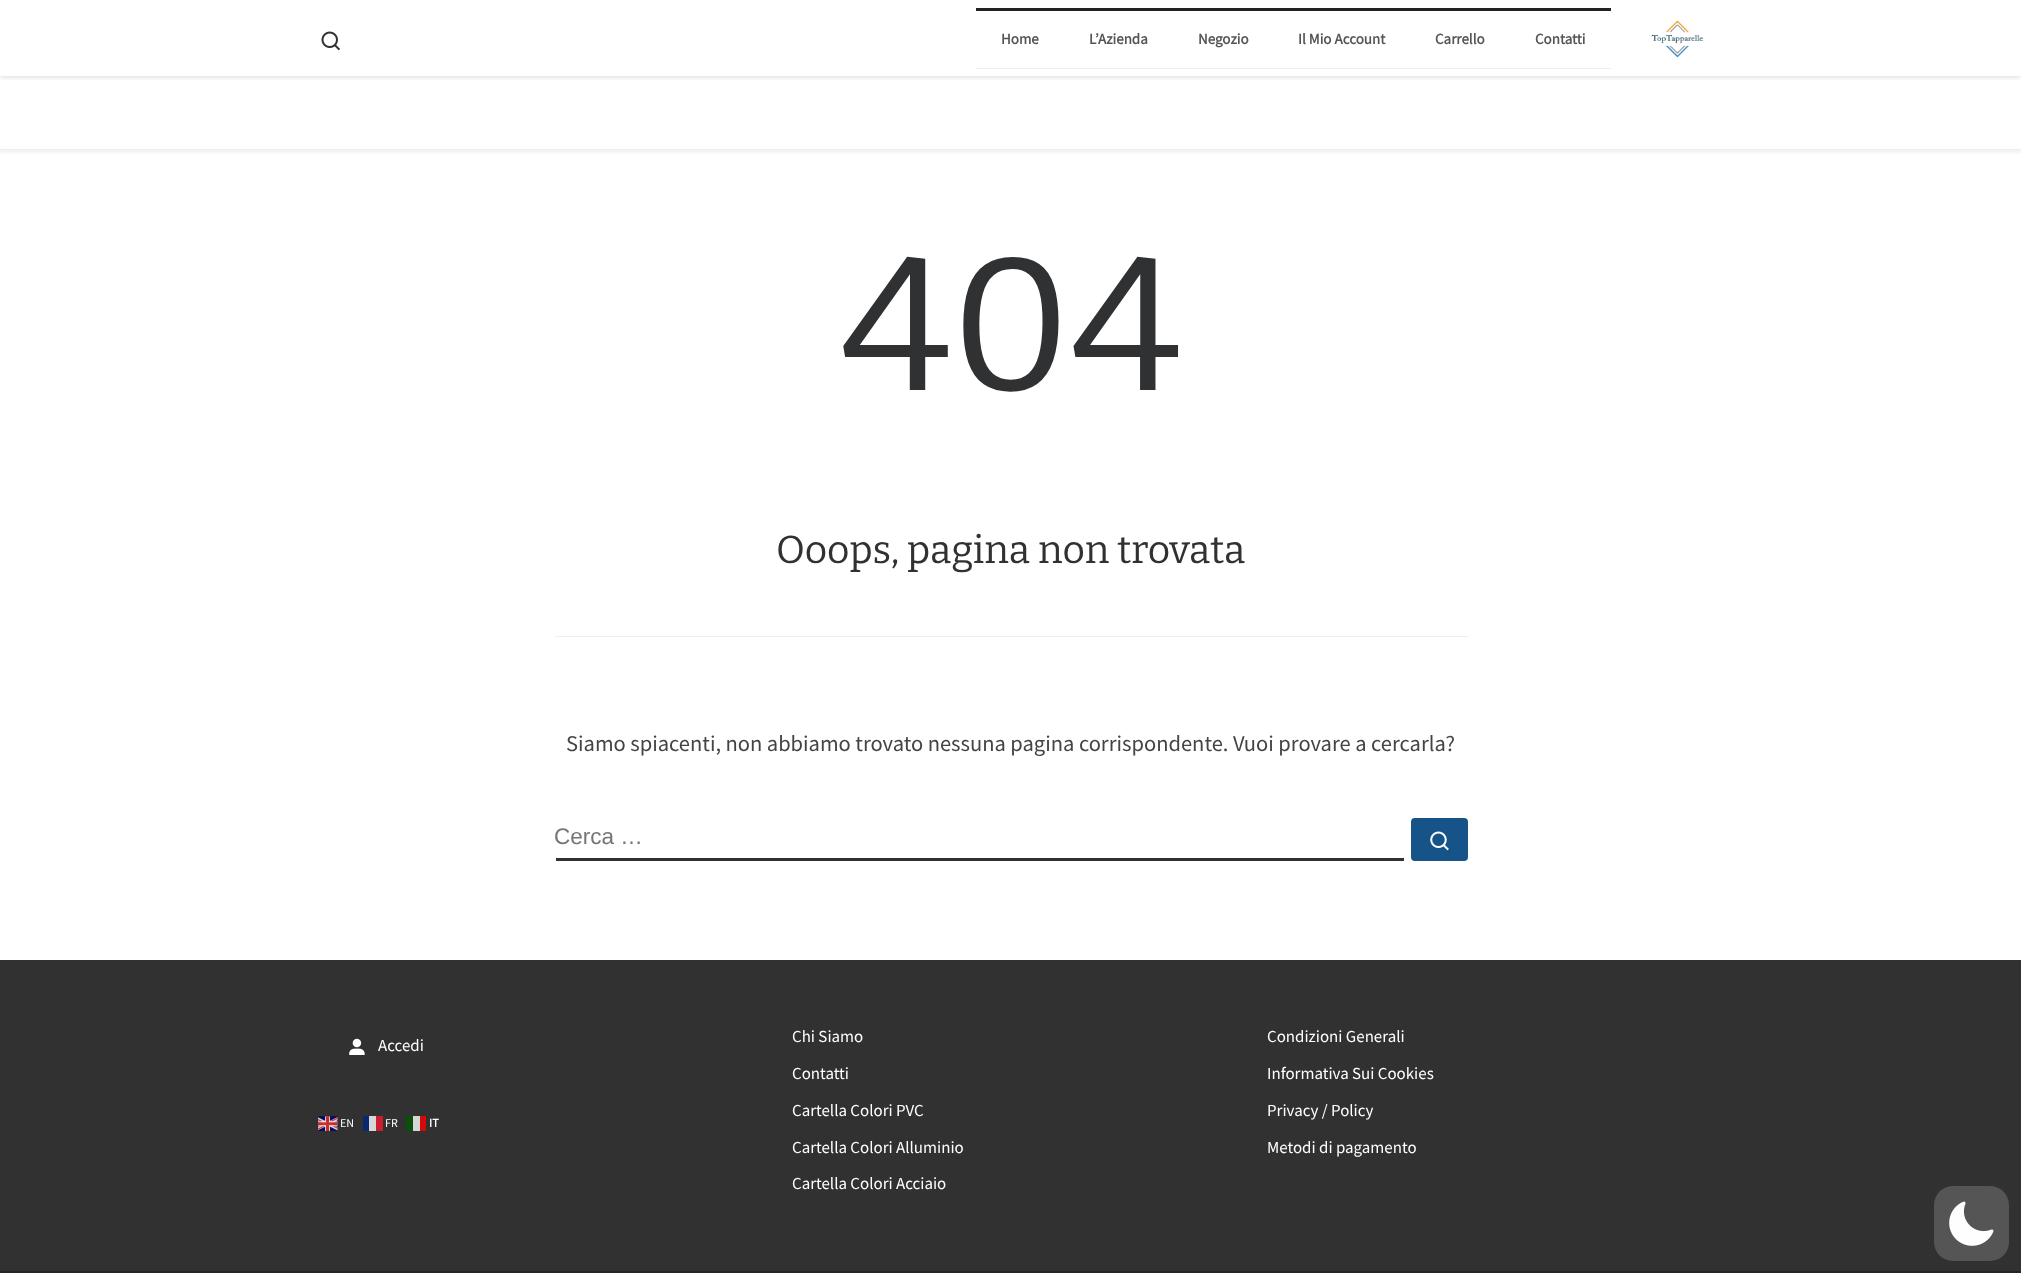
<svg xmlns="http://www.w3.org/2000/svg" width="2021" height="1273">
<defs>
<clipPath id="clip1"><rect x="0" y="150" width="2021" height="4"/></clipPath>
<clipPath id="clip2"><rect x="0" y="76" width="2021" height="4"/></clipPath>
</defs>
<rect width="100%" height="100%" fill="#fff"/>
<g clip-path="url(#clip1)">
<rect width="2021" height="153" fill="#66666614" filter="blur(1px)"/>
</g>
<rect y="149" width="2021" height="1" fill="#ececec"/>
<g clip-path="url(#clip2)">
<rect width="2021" height="76" fill="#00000033" filter="blur(3px)"/>
</g>
<image x="321" y="31" width="19" height="20" href="media/1.png"/>
<rect x="976" y="8" width="635" height="3" fill="#222"/>
<rect x="976" y="68" width="635" height="1" fill="#eee"/>
<text x="1001" y="44" style="font-family:Source Sans Pro;font-size:15px;font-weight:bold;fill:#555">Home</text>
<text x="1089" y="44" style="font-family:Source Sans Pro;font-size:15px;font-weight:bold;fill:#555">L’Azienda</text>
<text x="1198" y="44" style="font-family:Source Sans Pro;font-size:15px;font-weight:bold;fill:#555">Negozio</text>
<text x="1298" y="44" style="font-family:Source Sans Pro;font-size:15px;font-weight:bold;fill:#555">Il Mio Account</text>
<text x="1435" y="44" style="font-family:Source Sans Pro;font-size:15px;font-weight:bold;fill:#555">Carrello</text>
<text x="1535" y="44" style="font-family:Source Sans Pro;font-size:15px;font-weight:bold;fill:#555">Contatti</text>
<image x="1651" y="20" width="53" height="38" href="media/2.png"/>
<text x="841" y="390" style="font-family:Bitter;font-size:188px;font-weight:100;fill:#303133">404</text>
<text x="776" y="563" style="font-family:Bitter;font-size:38.9px;font-weight:100;fill:#303133">Ooops, pagina non trovata</text>
<rect x="555" y="636" width="913" height="1" fill="#eceeef"/>
<text x="566" y="751" style="font-family:Source Sans Pro;font-size:22.5px;fill:#444">Siamo spiacenti, non abbiamo trovato nessuna pagina corrispondente. Vuoi provare a cercarla?</text>
<rect x="556" y="858" width="848" height="3" fill="#313131"/>
<text x="554" y="844" style="font-family:Liberation Sans;font-size:22.5px;fill:#757575">Cerca …</text>
<rect x="1412.5" y="819.5" width="54" height="40" rx="2.5" fill="#165389" stroke="#165389" stroke-width="3"/>
<image x="1430" y="831" width="19" height="20" href="media/3.png"/>
<rect y="960" width="2021" height="311" fill="#313131"/>
<image x="349" y="1038" width="16" height="17" href="media/4.png"/>
<text x="378" y="1051" style="font-family:Source Sans Pro;font-size:16.9px;fill:#fff">Accedi</text>
<image x="318" y="1116" width="20" height="15" href="media/5.png"/>
<text x="340" y="1127" style="font-family:Source Sans Pro;font-size:12px;fill:#fff">EN</text>
<text x="385" y="1127" style="font-family:Source Sans Pro;font-size:12px;fill:#fff">FR</text>
<rect x="369" y="1116" width="7" height="15" fill="#d6d6d6"/>
<rect x="363" y="1116" width="6" height="15" fill="#0a286f"/>
<rect x="376" y="1116" width="7" height="15" fill="#cc1d30"/>
<text x="429" y="1127" style="font-family:Source Sans Pro;font-size:12px;font-weight:bold;fill:#fff">IT</text>
<rect x="413" y="1116" width="7" height="15" fill="#d6d6d6"/>
<rect x="406" y="1116" width="7" height="15" fill="#0a4f0a"/>
<rect x="420" y="1116" width="6" height="15" fill="#d30a0a"/>
<text x="792" y="1042" style="font-family:Source Sans Pro;font-size:16.9px;fill:#fff">Chi Siamo</text>
<text x="792" y="1079" style="font-family:Source Sans Pro;font-size:16.9px;fill:#fff">Contatti</text>
<text x="792" y="1116" style="font-family:Source Sans Pro;font-size:16.9px;fill:#fff">Cartella Colori PVC</text>
<text x="792" y="1153" style="font-family:Source Sans Pro;font-size:16.9px;fill:#fff">Cartella Colori Alluminio</text>
<text x="792" y="1189" style="font-family:Source Sans Pro;font-size:16.9px;fill:#fff">Cartella Colori Acciaio</text>
<text x="1267" y="1042" style="font-family:Source Sans Pro;font-size:16.9px;fill:#fff">Condizioni Generali</text>
<text x="1267" y="1079" style="font-family:Source Sans Pro;font-size:16.9px;fill:#fff">Informativa Sui Cookies</text>
<text x="1267" y="1116" style="font-family:Source Sans Pro;font-size:16.9px;fill:#fff">Privacy / Policy</text>
<text x="1267" y="1153" style="font-family:Source Sans Pro;font-size:16.9px;fill:#fff">Metodi di pagamento</text>
<rect y="1271" width="2021" height="2" fill="#242424"/>
<rect x="1934" y="1186" width="75" height="75" rx="19" fill="#555"/>
<image x="1949" y="1201" width="45" height="45" href="media/6.png"/>
</svg>
